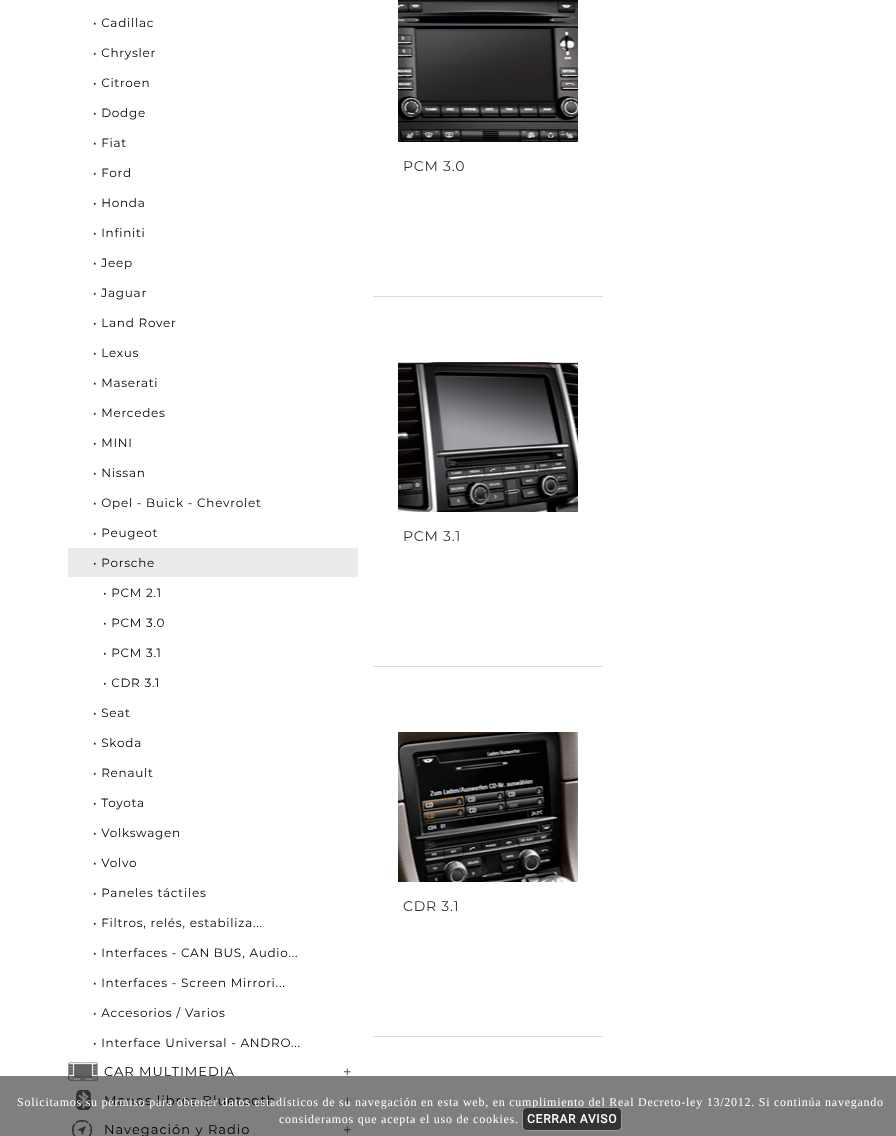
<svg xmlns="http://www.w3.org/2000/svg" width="896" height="1136">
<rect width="100%" height="100%" fill="#fff"/>
<text x="93" y="27" style="font-family:Montserrat;font-size:12px;font-weight:100;letter-spacing:0.75px;fill:#000">• Cadillac</text>
<text x="93" y="57" style="font-family:Montserrat;font-size:12px;font-weight:100;letter-spacing:0.75px;fill:#000">• Chrysler</text>
<text x="93" y="87" style="font-family:Montserrat;font-size:12px;font-weight:100;letter-spacing:0.75px;fill:#000">• Citroen</text>
<text x="93" y="117" style="font-family:Montserrat;font-size:12px;font-weight:100;letter-spacing:0.75px;fill:#000">• Dodge</text>
<text x="93" y="147" style="font-family:Montserrat;font-size:12px;font-weight:100;letter-spacing:0.75px;fill:#000">• Fiat</text>
<text x="93" y="177" style="font-family:Montserrat;font-size:12px;font-weight:100;letter-spacing:0.75px;fill:#000">• Ford</text>
<text x="93" y="207" style="font-family:Montserrat;font-size:12px;font-weight:100;letter-spacing:0.75px;fill:#000">• Honda</text>
<text x="93" y="237" style="font-family:Montserrat;font-size:12px;font-weight:100;letter-spacing:0.75px;fill:#000">• Infiniti</text>
<text x="93" y="267" style="font-family:Montserrat;font-size:12px;font-weight:100;letter-spacing:0.75px;fill:#000">• Jeep</text>
<text x="93" y="297" style="font-family:Montserrat;font-size:12px;font-weight:100;letter-spacing:0.75px;fill:#000">• Jaguar</text>
<text x="93" y="327" style="font-family:Montserrat;font-size:12px;font-weight:100;letter-spacing:0.75px;fill:#000">• Land Rover</text>
<text x="93" y="357" style="font-family:Montserrat;font-size:12px;font-weight:100;letter-spacing:0.75px;fill:#000">• Lexus</text>
<text x="93" y="387" style="font-family:Montserrat;font-size:12px;font-weight:100;letter-spacing:0.75px;fill:#000">• Maserati</text>
<text x="93" y="417" style="font-family:Montserrat;font-size:12px;font-weight:100;letter-spacing:0.75px;fill:#000">• Mercedes</text>
<text x="93" y="447" style="font-family:Montserrat;font-size:12px;font-weight:100;letter-spacing:0.75px;fill:#000">• MINI</text>
<text x="93" y="477" style="font-family:Montserrat;font-size:12px;font-weight:100;letter-spacing:0.75px;fill:#000">• Nissan</text>
<text x="93" y="507" style="font-family:Montserrat;font-size:12px;font-weight:100;letter-spacing:0.75px;fill:#000">• Opel - Buick - Chevrolet</text>
<text x="93" y="537" style="font-family:Montserrat;font-size:12px;font-weight:100;letter-spacing:0.75px;fill:#000">• Peugeot</text>
<rect x="68" y="548" width="290" height="29" fill="#ebebeb"/>
<text x="93" y="567" style="font-family:Montserrat;font-size:12px;font-weight:100;letter-spacing:0.75px;fill:#000">• Porsche</text>
<text x="103" y="597" style="font-family:Montserrat;font-size:12px;font-weight:100;letter-spacing:0.75px;fill:#000">• PCM 2.1</text>
<text x="103" y="627" style="font-family:Montserrat;font-size:12px;font-weight:100;letter-spacing:0.75px;fill:#000">• PCM 3.0</text>
<text x="103" y="657" style="font-family:Montserrat;font-size:12px;font-weight:100;letter-spacing:0.75px;fill:#000">• PCM 3.1</text>
<text x="103" y="687" style="font-family:Montserrat;font-size:12px;font-weight:100;letter-spacing:0.75px;fill:#000">• CDR 3.1</text>
<text x="93" y="717" style="font-family:Montserrat;font-size:12px;font-weight:100;letter-spacing:0.75px;fill:#000">• Seat</text>
<text x="93" y="747" style="font-family:Montserrat;font-size:12px;font-weight:100;letter-spacing:0.75px;fill:#000">• Skoda</text>
<text x="93" y="777" style="font-family:Montserrat;font-size:12px;font-weight:100;letter-spacing:0.75px;fill:#000">• Renault</text>
<text x="93" y="807" style="font-family:Montserrat;font-size:12px;font-weight:100;letter-spacing:0.75px;fill:#000">• Toyota</text>
<text x="93" y="837" style="font-family:Montserrat;font-size:12px;font-weight:100;letter-spacing:0.75px;fill:#000">• Volkswagen</text>
<text x="93" y="867" style="font-family:Montserrat;font-size:12px;font-weight:100;letter-spacing:0.75px;fill:#000">• Volvo</text>
<text x="93" y="897" style="font-family:Montserrat;font-size:12px;font-weight:100;letter-spacing:0.75px;fill:#000">• Paneles táctiles</text>
<text x="93" y="927" style="font-family:Montserrat;font-size:12px;font-weight:100;letter-spacing:0.75px;fill:#000">• Filtros, relés, estabiliza...</text>
<text x="93" y="957" style="font-family:Montserrat;font-size:12px;font-weight:100;letter-spacing:0.75px;fill:#000">• Interfaces - CAN BUS, Audio...</text>
<text x="93" y="987" style="font-family:Montserrat;font-size:12px;font-weight:100;letter-spacing:0.75px;fill:#000">• Interfaces - Screen Mirrori...</text>
<text x="93" y="1017" style="font-family:Montserrat;font-size:12px;font-weight:100;letter-spacing:0.75px;fill:#000">• Accesorios / Varios</text>
<text x="93" y="1047" style="font-family:Montserrat;font-size:12px;font-weight:100;letter-spacing:0.75px;fill:#000">• Interface Universal - ANDRO...</text>
<image x="68" y="1062" width="30" height="19" href="media/1.png"/>
<text x="104" y="1076" style="font-family:Montserrat;font-size:13px;font-weight:100;letter-spacing:1px;fill:#000">CAR MULTIMEDIA</text>
<text x="343" y="1077" style="font-family:Montserrat;font-size:15px;font-weight:100;letter-spacing:1px;fill:#555">+</text>
<image x="76" y="1090" width="15" height="20" href="media/2.png"/>
<text x="104" y="1105" style="font-family:Montserrat;font-size:13px;font-weight:100;letter-spacing:1px;fill:#000">Manos libres Bluetooth</text>
<text x="343" y="1106" style="font-family:Montserrat;font-size:15px;font-weight:100;letter-spacing:1px;fill:#555">+</text>
<image x="72" y="1120" width="20" height="16" href="media/3.png"/>
<text x="104" y="1134" style="font-family:Montserrat;font-size:13px;font-weight:100;letter-spacing:1px;fill:#000">Navegación y Radio</text>
<text x="343" y="1135" style="font-family:Montserrat;font-size:15px;font-weight:100;letter-spacing:1px;fill:#555">+</text>
<rect x="373" y="296" width="230" height="1" fill="#ddd"/>
<image x="398" y="0" width="180" height="142" href="media/4.png"/>
<text x="403" y="171" style="font-family:Montserrat;font-size:14px;font-weight:100;letter-spacing:0.75px;fill:#313131">PCM 3.0</text>
<rect x="373" y="666" width="230" height="1" fill="#ddd"/>
<image x="398" y="362" width="180" height="150" href="media/5.png"/>
<text x="403" y="541" style="font-family:Montserrat;font-size:14px;font-weight:100;letter-spacing:0.75px;fill:#313131">PCM 3.1</text>
<rect x="373" y="1036" width="230" height="1" fill="#ddd"/>
<image x="398" y="732" width="180" height="150" href="media/6.png"/>
<text x="403" y="911" style="font-family:Montserrat;font-size:14px;font-weight:100;letter-spacing:0.75px;fill:#313131">CDR 3.1</text>
<rect y="1076" width="896" height="60" fill="#00000080"/>
<text x="17" y="1106" style="font-family:Liberation Serif;font-size:12px;letter-spacing:0.75px;fill:#fff">Solicitamos su permiso para obtener datos estadísticos de su navegación en esta web, en cumplimiento del Real Decreto-ley 13/2012. Si continúa navegando</text>
<text x="279" y="1123" style="font-family:Liberation Serif;font-size:12px;letter-spacing:0.75px;fill:#fff">consideramos que acepta el uso de cookies.</text>
<rect x="522.5" y="1107.5" width="99" height="23" rx="4.5" fill="#333" stroke="#999"/>
<text x="527" y="1123" style="font-family:Roboto;font-size:12px;font-weight:bold;letter-spacing:0.75px;fill:#fff">CERRAR AVISO</text>
</svg>
